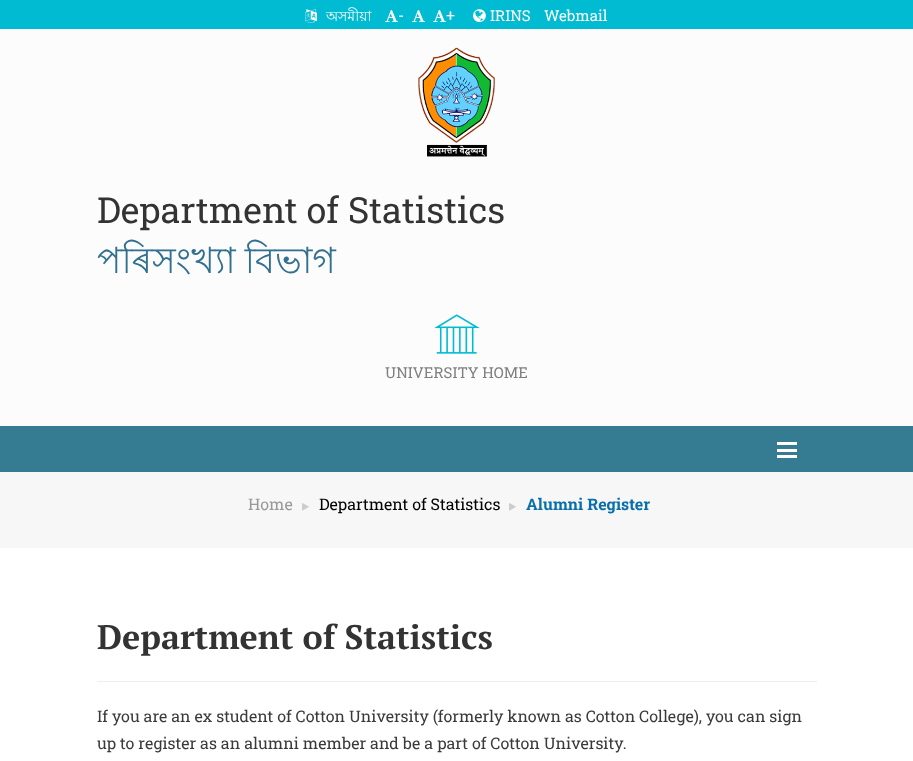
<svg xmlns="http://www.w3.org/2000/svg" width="913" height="761">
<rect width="100%" height="100%" fill="#fff"/>
<rect width="913" height="29" fill="#00bbd1"/>
<image x="305" y="9" width="12" height="14" href="media/1.png"/>
<text x="326" y="21" style="font-family:Lohit Bengali;font-size:14px;fill:#fff">অসমীয়া</text>
<image x="385" y="10" width="13" height="12" href="media/2.png"/>
<text x="398" y="21" style="font-family:Roboto Slab;font-size:16px;fill:#fff">-</text>
<image x="412" y="10" width="13" height="12" href="media/2.png"/>
<image x="433" y="10" width="13" height="12" href="media/2.png"/>
<text x="446" y="21" style="font-family:Roboto Slab;font-size:16px;fill:#fff">+</text>
<image x="473" y="9" width="13" height="14" href="media/3.png"/>
<text x="490" y="21" style="font-family:Roboto Slab;font-size:15px;fill:#fff">IRINS</text>
<text x="544" y="21" style="font-family:Roboto Slab;font-size:15px;fill:#fff">Webmail</text>
<rect y="29" width="913" height="397" fill="#fcfcfc"/>
<image x="418" y="47" width="77" height="110" href="media/4.png"/>
<text x="97" y="223" style="font-family:Roboto Slab;font-size:36px;fill:#333">Department of Statistics</text>
<text x="97" y="273" word-spacing="-1" style="font-family:Lohit Bengali;font-size:36px;fill:#31708f">পৰিসংখ্যা বিভাগ</text>
<image x="434" y="314" width="46" height="40" href="media/5.png"/>
<text x="385" y="378" style="font-family:Roboto Slab;font-size:15px;fill:#808080">UNIVERSITY HOME</text>
<rect y="426" width="913" height="46" fill="#357c92"/>
<rect x="777" y="442" width="20" height="3" fill="#fff"/>
<rect x="777" y="449" width="20" height="3" fill="#fff"/>
<rect x="777" y="455" width="20" height="3" fill="#fff"/>
<rect y="472" width="913" height="76" fill="#f7f7f7"/>
<text x="248" y="510" style="font-family:Roboto Slab;font-size:16px;fill:#999">Home</text>
<image x="302" y="503" width="7" height="8" href="media/6.png"/>
<text x="319" y="510" style="font-family:Roboto Slab;font-size:16px;fill:#000">Department of Statistics</text>
<image x="509" y="503" width="7" height="8" href="media/6.png"/>
<text x="526" y="510" style="font-family:Roboto Slab;font-size:16px;font-weight:bold;fill:#086faa">Alumni Register</text>
<text x="97" y="649" style="font-family:PT Serif;font-size:34px;font-weight:bold;fill:#333">Department of Statistics</text>
<rect x="97" y="681" width="720" height="1" fill="#eee"/>
<text x="97" y="722" style="font-family:Roboto Slab;font-size:16px;fill:#3a3a3a">If you are an ex student of Cotton University (formerly known as Cotton College), you can sign</text>
<text x="97" y="749" style="font-family:Roboto Slab;font-size:16px;fill:#3a3a3a">up to register as an alumni member and be a part of Cotton University.</text>
</svg>
